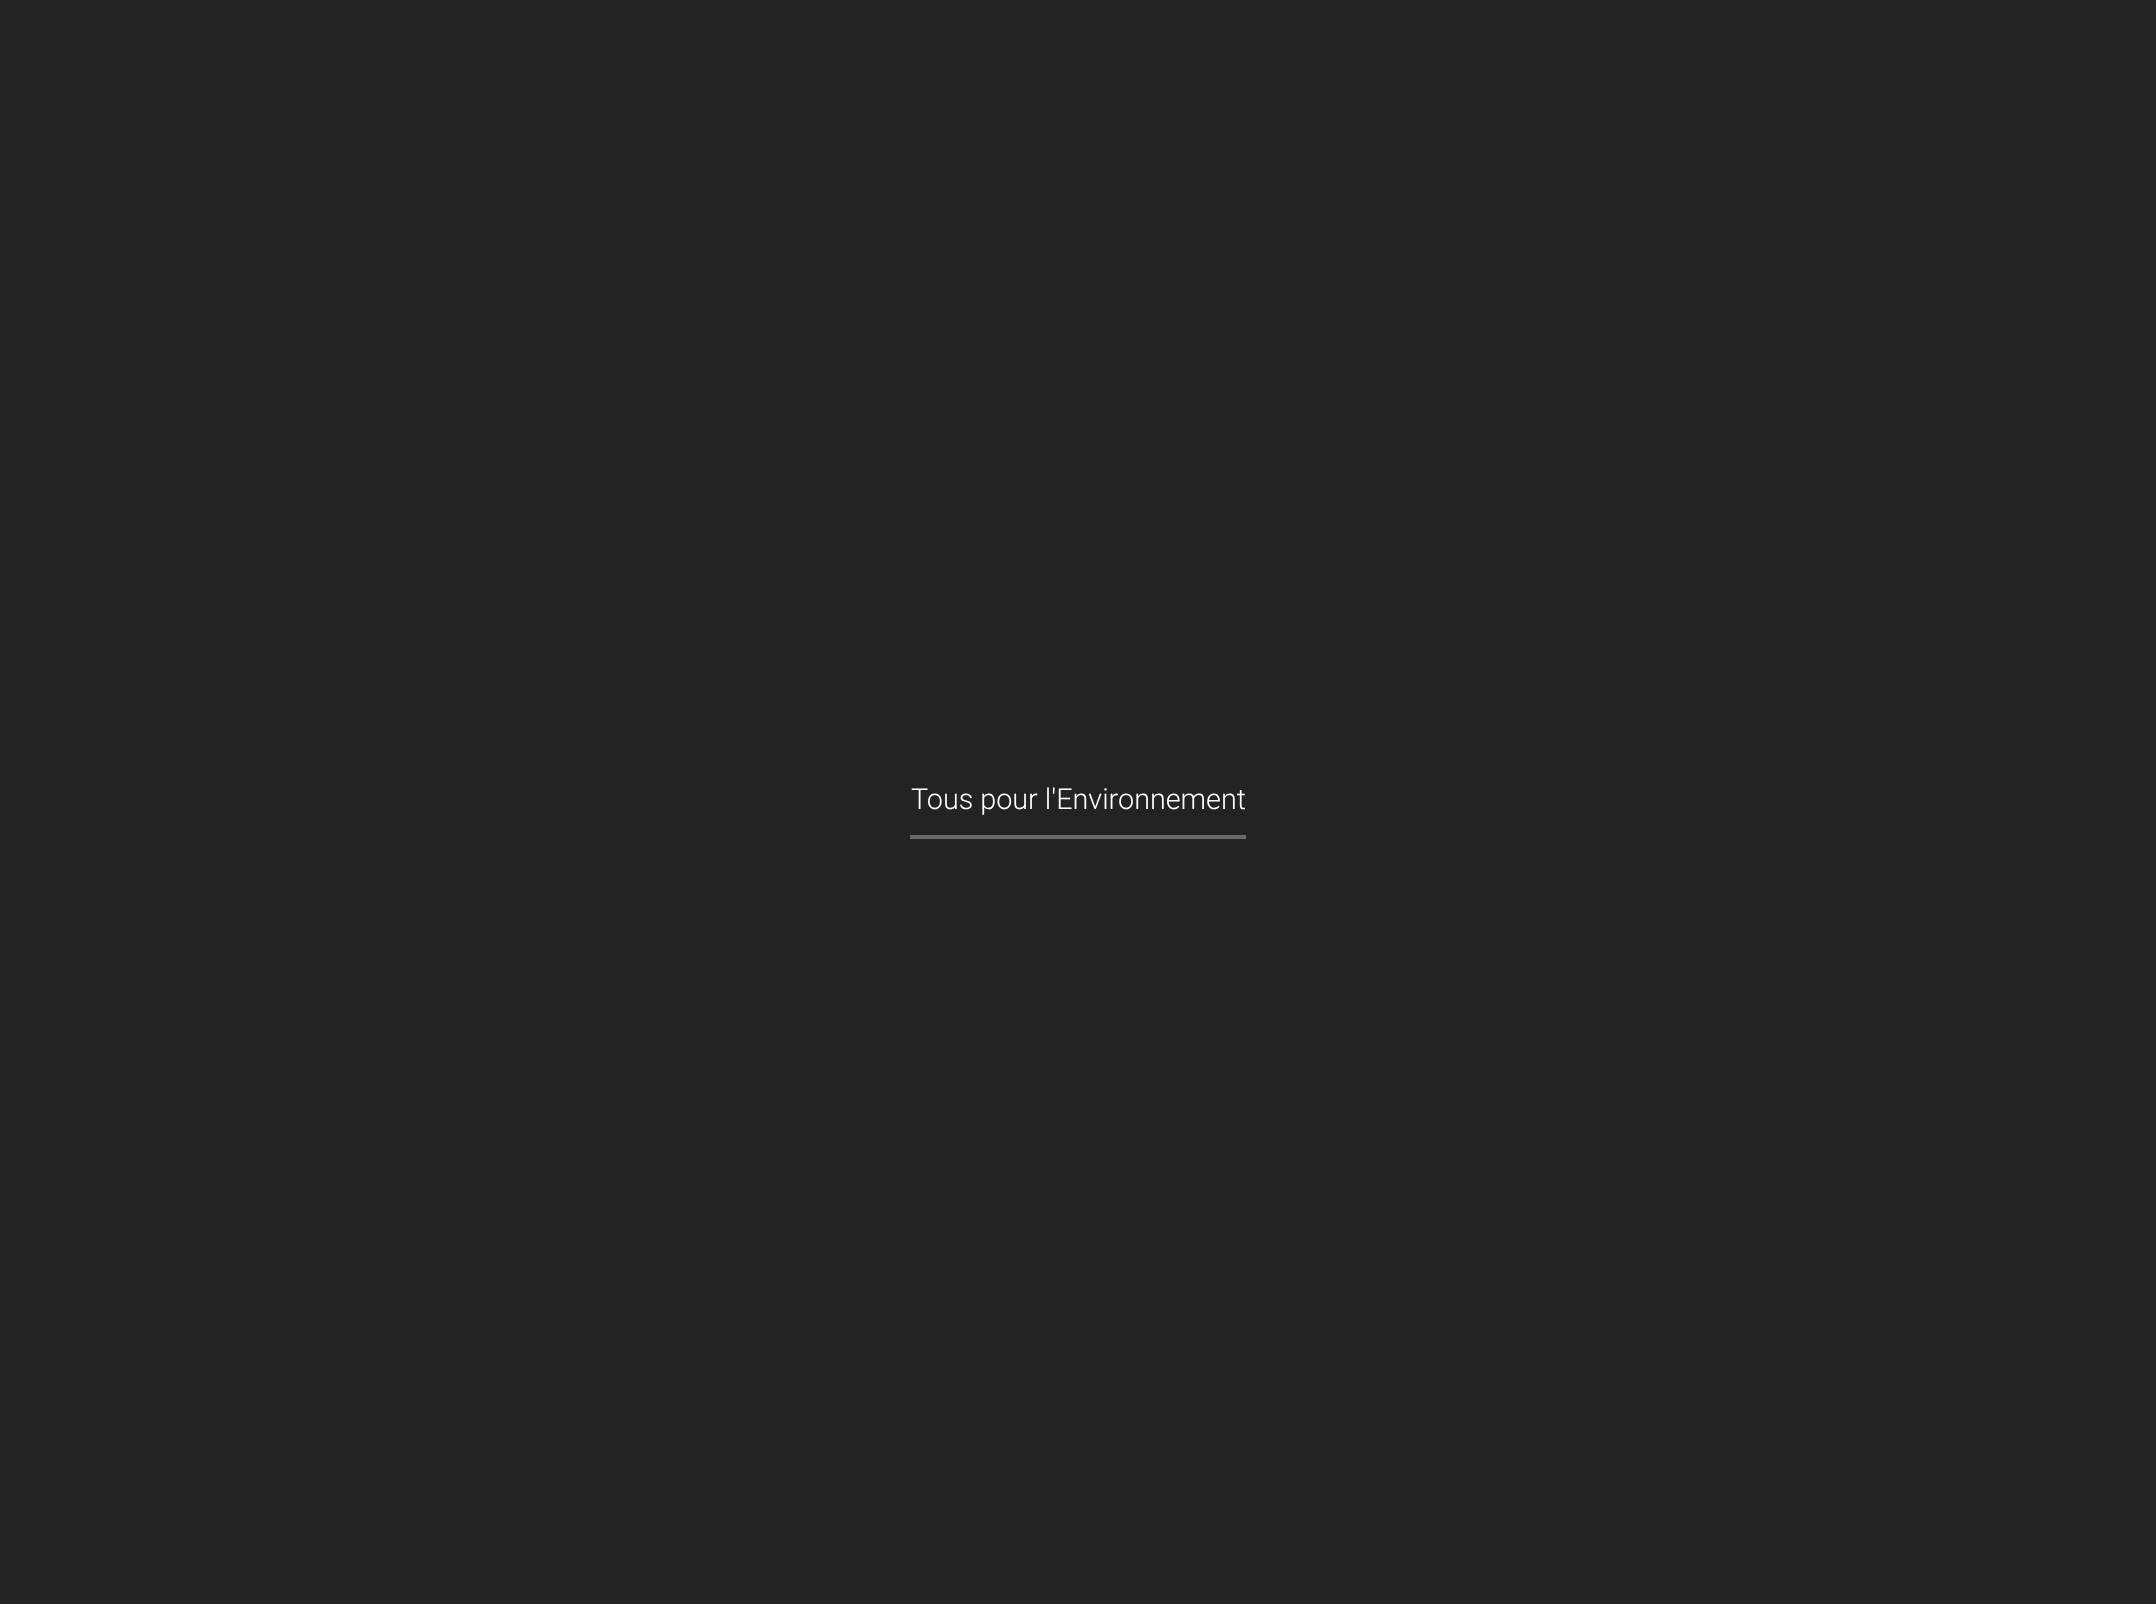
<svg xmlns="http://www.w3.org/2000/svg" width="2156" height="1604">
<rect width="100%" height="100%" fill="#232320"/>
<text x="911" y="809" style="font-family:Roboto;font-size:28.75px;font-weight:300;fill:#fff">Tous pour l'Environnement</text>
<rect x="910" y="835" width="336" height="4" fill="#686b65"/>
</svg>
